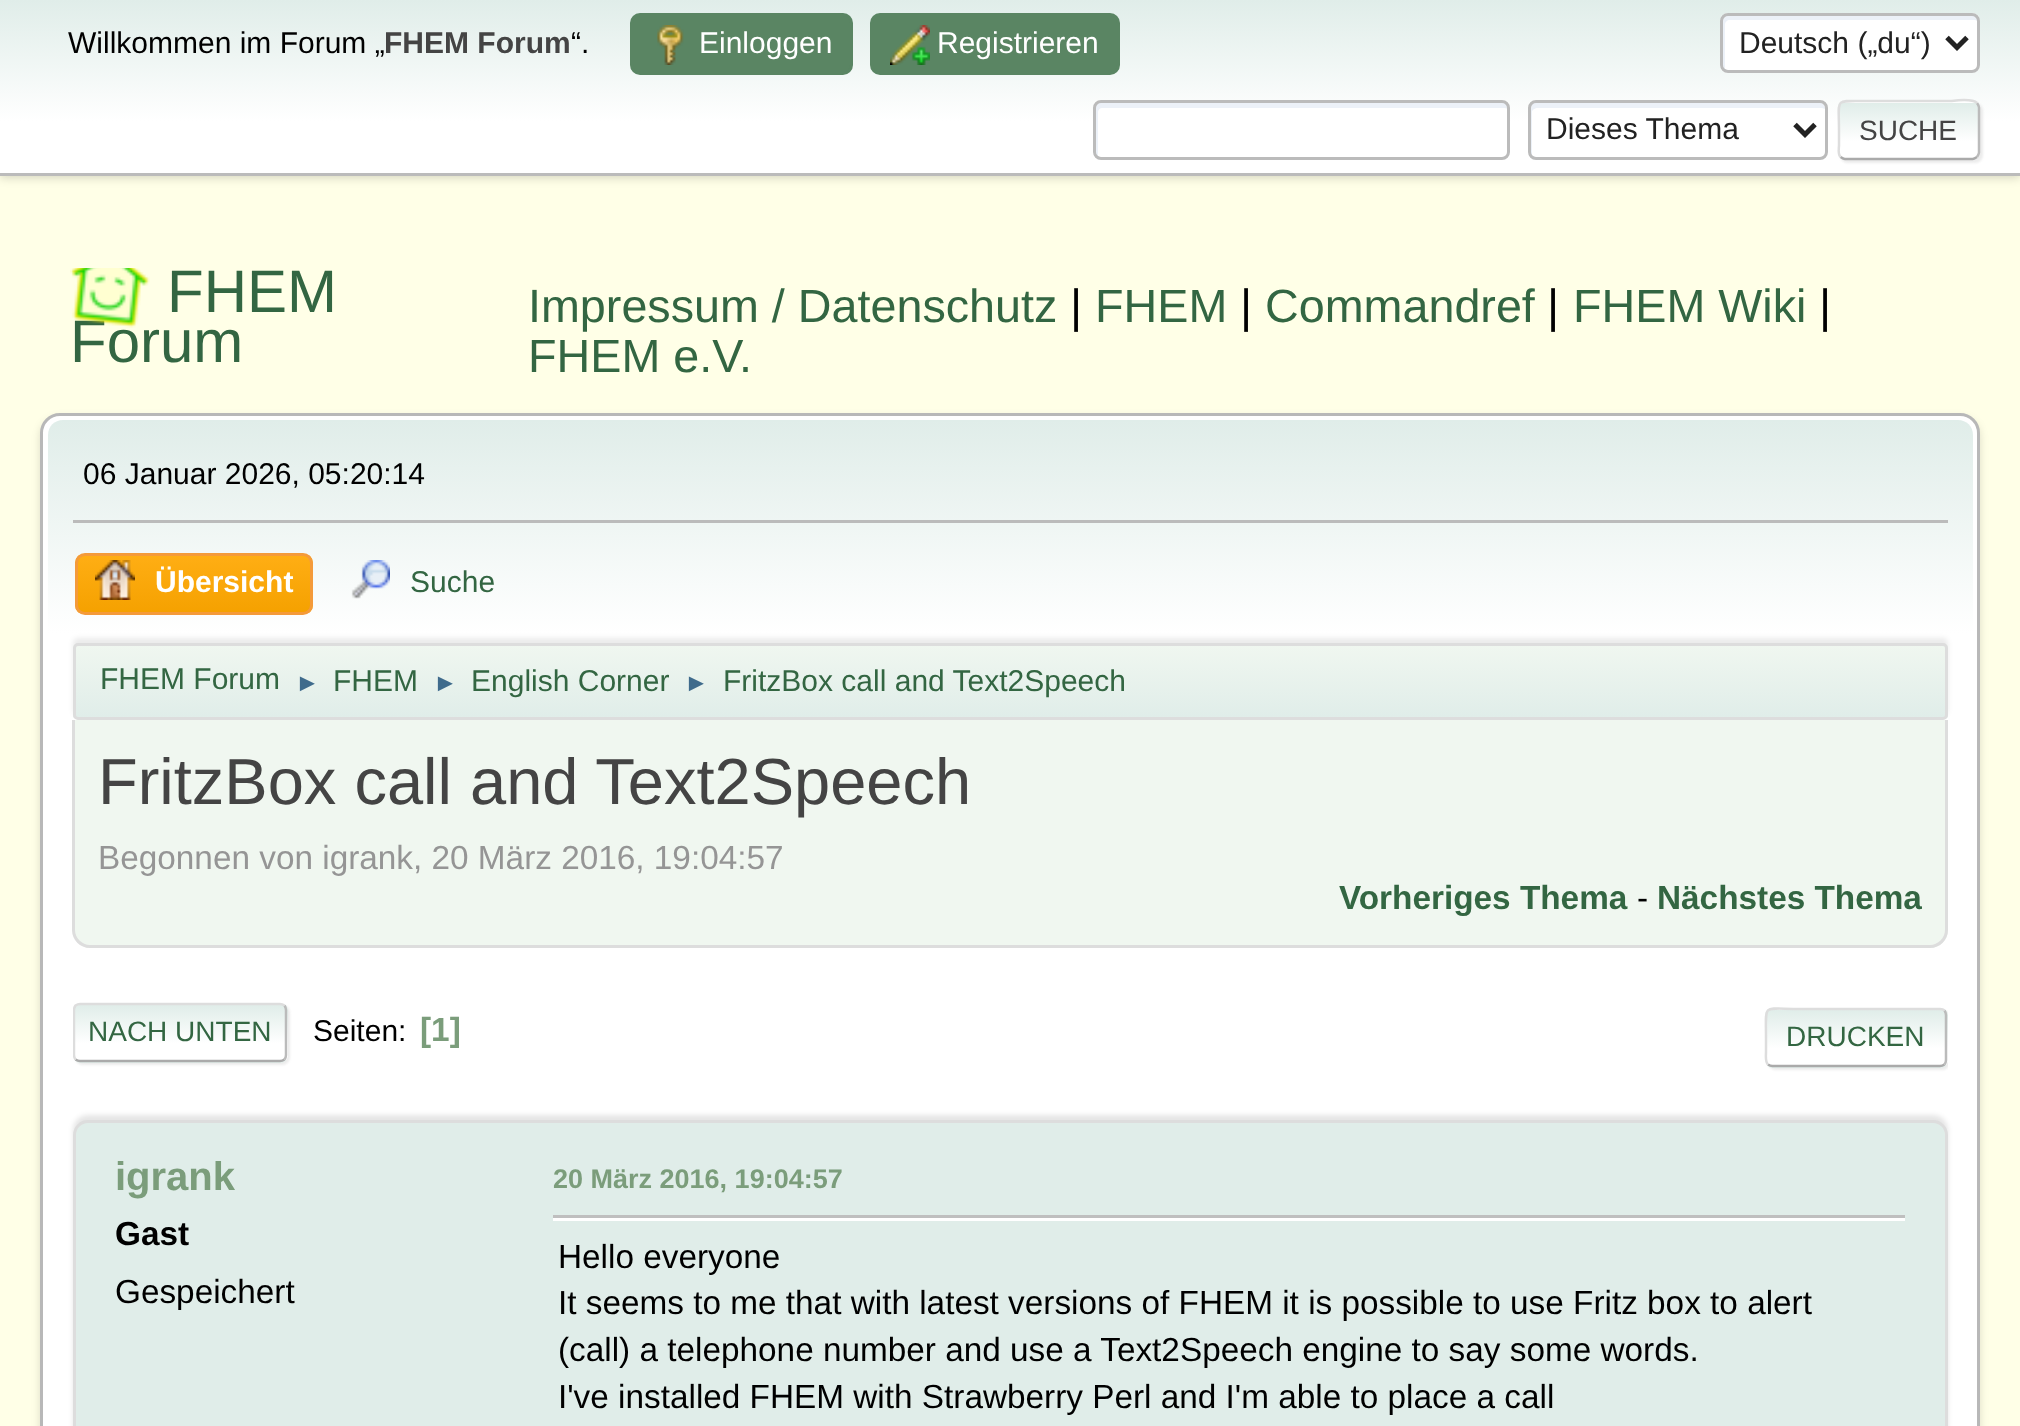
<svg xmlns="http://www.w3.org/2000/svg" width="2020" height="1426">
<defs>
<linearGradient id="g1" gradientUnits="userSpaceOnUse" x1="1010" y1="0" x2="1010" y2="173"><stop offset="0" stop-color="#e0ede9"/><stop offset="0.7" stop-color="#fff"/></linearGradient>
<clipPath id="clip1"><rect x="1838" y="100" width="142" height="60" rx="8"/></clipPath>
<linearGradient id="g2" gradientUnits="userSpaceOnUse" x1="1909" y1="103" x2="1909" y2="158"><stop offset="0" stop-color="#e0ede9"/><stop offset="0.7" stop-color="#fff"/></linearGradient>
<linearGradient id="g3" gradientUnits="userSpaceOnUse" x1="1010" y1="420" x2="1010" y2="725"><stop offset="0" stop-color="#e0ede9"/><stop offset="0.7" stop-color="#fff"/></linearGradient>
<clipPath id="clip2"><rect x="75" y="553" width="238" height="62" rx="10"/></clipPath>
<linearGradient id="g4" gradientUnits="userSpaceOnUse" x1="194" y1="555" x2="194" y2="613"><stop offset="0" stop-color="#ffae14"/><stop offset="1" stop-color="#f5a100"/></linearGradient>
<clipPath id="clip3"><rect x="73" y="643" width="1875" height="77" rx="5"/></clipPath>
<linearGradient id="g5" gradientUnits="userSpaceOnUse" x1="1010" y1="645" x2="1010" y2="718"><stop offset="0" stop-color="#f0f7f0"/><stop offset="1" stop-color="#e0ede9"/></linearGradient>
<clipPath id="clip4"><rect x="73" y="1003" width="215" height="60" rx="8"/></clipPath>
<linearGradient id="g6" gradientUnits="userSpaceOnUse" x1="180" y1="1005" x2="180" y2="1060"><stop offset="0" stop-color="#e0ede9"/><stop offset="0.7" stop-color="#fff"/></linearGradient>
<linearGradient id="g7" gradientUnits="userSpaceOnUse" x1="180" y1="1060" x2="180" y2="1115"><stop offset="0" stop-color="#e0ede9"/><stop offset="0.7" stop-color="#fff"/></linearGradient>
<clipPath id="clip5"><rect x="73" y="985" width="1875" height="105"/></clipPath>
<clipPath id="clip6"><rect x="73" y="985" width="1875" height="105"/></clipPath>
<clipPath id="clip7"><rect x="1765" y="1008" width="183" height="60" rx="8"/></clipPath>
<linearGradient id="g8" gradientUnits="userSpaceOnUse" x1="1856" y1="1010" x2="1856" y2="1065"><stop offset="0" stop-color="#e0ede9"/><stop offset="0.7" stop-color="#fff"/></linearGradient>
<linearGradient id="g9" gradientUnits="userSpaceOnUse" x1="1856" y1="1065" x2="1856" y2="1120"><stop offset="0" stop-color="#e0ede9"/><stop offset="0.7" stop-color="#fff"/></linearGradient>
</defs>
<rect width="100%" height="100%" fill="#ffffe7"/>
<rect y="3" width="2020" height="175" fill="#00000029" filter="blur(5px)"/>
<rect width="2020" height="173" fill="url(#g1)"/>
<rect y="173" width="2020" height="3" fill="#bbb"/>
<text x="68" y="53" style="font-family:Liberation Sans;font-size:30px;fill:#000">Willkommen im Forum „</text>
<text x="384" y="53" style="font-family:Liberation Sans;font-size:30px;font-weight:bold;fill:#444">FHEM Forum</text>
<text x="571" y="53" style="font-family:Liberation Sans;font-size:30px;fill:#000">“.</text>
<rect x="631.5" y="14.5" width="220" height="59" rx="8.5" fill="#5a8563" stroke="#5a8563" stroke-width="3"/>
<image x="657" y="25" width="27" height="40" href="media/1.png"/>
<text x="699" y="53" style="font-family:Liberation Sans;font-size:30px;fill:#fff">Einloggen</text>
<rect x="871.5" y="14.5" width="247" height="59" rx="8.5" fill="#5a8563" stroke="#5a8563" stroke-width="3"/>
<image x="890" y="25" width="40" height="40" href="media/2.png"/>
<text x="937" y="53" style="font-family:Liberation Sans;font-size:30px;fill:#fff">Registrieren</text>
<rect x="1720" y="13" width="260" height="60" rx="8" fill="#fff"/>
<path d="M1730 20h245l3 1v-1c0-3-2-5-5-5h-245c-3 0-5 2-5 5v45c0 2 1 3 2 4v-44c0-3 2-5 5-5z" fill="#ecf1f8"/>
<rect x="1721.5" y="14.5" width="257" height="57" rx="6.5" fill="none" stroke="#bbb" stroke-width="3"/>
<path d="M1947 37.5l10 10l10-10" fill="none" stroke="#222" stroke-width="5"/>
<text x="1739" y="53" style="font-family:Liberation Sans;font-size:30px;fill:#222">Deutsch („du“)</text>
<rect x="1093" y="100" width="417" height="60" rx="8" fill="#fff"/>
<path d="M1102 108h403l3 1v-1c0-3-2-5-5-5h-403c-3 0-5 2-5 5v45c0 2 1 4 3 5v-46c0-2 2-4 4-4z" fill="#ecf1f8"/>
<rect x="1094.5" y="101.5" width="414" height="57" rx="6.5" fill="none" stroke="#bbb" stroke-width="3"/>
<rect x="1528" y="100" width="300" height="60" rx="8" fill="#fff"/>
<path d="M1538 108h284l3 1v-1c0-3-2-5-5-5h-285c-3 0-5 2-5 5v45c0 2 1 3 2 4v-45c0-2 3-4 6-4z" fill="#ecf1f8"/>
<rect x="1529.5" y="101.5" width="297" height="57" rx="6.5" fill="none" stroke="#bbb" stroke-width="3"/>
<path d="M1795 124.5l10 10l10-10" fill="none" stroke="#222" stroke-width="5"/>
<text x="1546" y="139" style="font-family:Liberation Sans;font-size:30px;fill:#222">Dieses Thema</text>
<rect x="1840" y="103" width="143" height="60" rx="8" fill="#dddddd91" filter="blur(1px)"/>
<rect x="1838" y="100" width="142" height="60" rx="8" fill="#fff"/>
<g clip-path="url(#clip1)">
<rect x="1838" y="103" width="142" height="55" fill="url(#g2)"/>
</g>
<path d="M1977 103c1 1.5 2 3 2 4.5v45c0 1.5-1 3-2 4.5" fill="none" stroke="#bbb" stroke-width="2.5"/>
<path d="M1977 157c-1.5 1-3 2-4.5 2h-127.5c-1.5 0-3-1-4.5-2" fill="none" stroke="#aaa" stroke-width="2.5"/>
<path d="M1840.5 157c-3-3-1.5-8.5-1.5-12v-15c0-32.5-5.5-29 27-29h85c.5 0 21-3 26 2" fill="none" stroke="#ddd" stroke-width="2.5"/>
<text x="1859" y="140" style="font-family:Liberation Sans;font-size:28px;fill:#444">SUCHE</text>
<text x="70" y="362" style="font-family:Liberation Sans;font-size:60px;fill:#336642">Forum</text>
<image x="70" y="268" width="80" height="60" href="media/3.png"/>
<text x="167" y="312" style="font-family:Liberation Sans;font-size:60px;fill:#336642">FHEM</text>
<text x="528" y="322" style="font-family:Liberation Sans;font-size:46.7px;fill:#336642">Impressum / Datenschutz</text>
<text x="1070" y="322" style="font-family:Liberation Sans;font-size:46.7px;fill:#000">|</text>
<text x="1095" y="322" style="font-family:Liberation Sans;font-size:46.7px;fill:#336642">FHEM</text>
<text x="1240" y="322" style="font-family:Liberation Sans;font-size:46.7px;fill:#000">|</text>
<text x="1265" y="322" style="font-family:Liberation Sans;font-size:46.7px;fill:#336642">Commandref</text>
<text x="1547" y="322" style="font-family:Liberation Sans;font-size:46.7px;fill:#000">|</text>
<text x="1573" y="322" style="font-family:Liberation Sans;font-size:46.7px;fill:#336642">FHEM Wiki</text>
<text x="1819" y="322" style="font-family:Liberation Sans;font-size:46.7px;fill:#000">|</text>
<text x="528" y="372" style="font-family:Liberation Sans;font-size:46.7px;fill:#336642">FHEM e.V.</text>
<rect x="40" y="418" width="1940" height="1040" rx="20" fill="#00000024" filter="blur(4px)"/>
<rect x="41.5" y="414.5" width="1937" height="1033" rx="18.5" fill="#fff" stroke="#b8b8b8" stroke-width="3"/>
<path d="M63 420h1895c8.5 0 15 6.5 15 15v290h-1925v-290c0-8.5 6.5-15 15-15z" fill="url(#g3)"/>
<rect x="73" y="520" width="1875" height="3" fill="#bbb"/>
<text x="83" y="484" style="font-family:Liberation Sans;font-size:30px;fill:#000">06 Januar 2026, 05:20:14</text>
<g clip-path="url(#clip2)">
<rect x="75" y="555" width="238" height="58" fill="url(#g4)"/>
</g>
<rect x="76.5" y="554.5" width="235" height="59" rx="8.5" fill="none" stroke="#f49a3a" stroke-width="3"/>
<image x="95" y="560" width="40" height="40" href="media/4.png"/>
<text x="155" y="592" style="font-family:Liberation Sans;font-size:30px;font-weight:bold;fill:#fff">Übersicht</text>
<image x="351" y="560" width="39" height="39" href="media/5.png"/>
<text x="410" y="592" style="font-family:Liberation Sans;font-size:30px;fill:#336642">Suche</text>
<rect x="73" y="638" width="1875" height="77" rx="5" fill="#00000014" filter="blur(2.5px)"/>
<g clip-path="url(#clip3)">
<rect x="73" y="645" width="1875" height="73" fill="url(#g5)"/>
</g>
<rect x="74.5" y="644.5" width="1872" height="74" rx="3.5" fill="none" stroke="#ddd" stroke-width="3"/>
<text x="100" y="689" style="font-family:Liberation Sans;font-size:30px;fill:#336642">FHEM Forum</text>
<text x="295" y="691" style="font-family:Liberation Sans;font-size:25px;fill:#3f6b8c">►</text>
<text x="333" y="691" style="font-family:Liberation Sans;font-size:30px;fill:#336642">FHEM</text>
<text x="433" y="691" style="font-family:Liberation Sans;font-size:25px;fill:#3f6b8c">►</text>
<text x="471" y="691" style="font-family:Liberation Sans;font-size:30px;fill:#336642">English Corner</text>
<text x="684" y="691" style="font-family:Liberation Sans;font-size:25px;fill:#3f6b8c">►</text>
<text x="723" y="691" style="font-family:Liberation Sans;font-size:30px;fill:#336642">FritzBox call and Text2Speech</text>
<path d="M73 720h1875v210c0 10-8 18-18 18h-1839c-10 0-18-8-18-18z" fill="#f0f7f0"/>
<path d="M72 720h1876v210c0 10-8 18-18 18h-1840c-10 0-18-8-18-18zm3 0h1870v210c0 8-7 15-15 15h-1840c-8 0-15-7-15-15z" fill="#ddd" fill-rule="evenodd"/>
<text x="98" y="804" style="font-family:Liberation Sans;font-size:65px;fill:#444">FritzBox call and Text2Speech</text>
<text x="98" y="869" style="font-family:Liberation Sans;font-size:33.35px;fill:#959595">Begonnen von igrank, 20 März 2016, 19:04:57</text>
<text x="1339" y="909" style="font-family:Liberation Sans;font-size:33.35px;font-weight:bold;fill:#336642">Vorheriges Thema</text>
<text x="1637" y="909" style="font-family:Liberation Sans;font-size:33.35px;fill:#000">-</text>
<text x="1657" y="909" style="font-family:Liberation Sans;font-size:33.35px;font-weight:bold;fill:#336642">Nächstes Thema</text>
<rect x="75" y="1005" width="215" height="60" rx="8" fill="#dddddd91" filter="blur(1px)"/>
<g clip-path="url(#clip4)">
<rect x="73" y="1005" width="215" height="55" fill="url(#g6)"/>
<rect x="73" y="1060" width="215" height="3" fill="url(#g7)"/>
</g>
<path d="M284.5 1005.5c1 1.5 1.5 3 1.5 4.5v45c0 1.5-.5 3-1.5 4.5" fill="none" stroke="#bbb" stroke-width="2.5"/>
<path d="M284.5 1059.5c-1.5 1-3 1.5-4.5 1.5h-200c-1.5 0-3-.5-4.5-1.5" fill="none" stroke="#aaa" stroke-width="2.5"/>
<g clip-path="url(#clip5)">
<path d="M75.5 1059.5c-1-1.5-1.5-3-1.5-4.5v-45c0-1.5 .5-3 1.5-4.5c1.5-1 3-1.5 4.5-1.5h200c1.5 0 3 .5 4.5 1.5" fill="none" stroke="#ddd" stroke-width="2.5"/>
</g>
<text x="88" y="1041" style="font-family:Liberation Sans;font-size:28px;fill:#336642">NACH UNTEN</text>
<text x="313" y="1041" style="font-family:Liberation Sans;font-size:30px;fill:#000">Seiten:</text>
<text x="420" y="1041" style="font-family:Liberation Sans;font-size:33.35px;font-weight:bold;fill:#7b9d7b">[1]</text>
<g clip-path="url(#clip6)">
<rect x="1768" y="1010" width="182" height="60" rx="8" fill="#dddddd91" filter="blur(1px)"/>
</g>
<g clip-path="url(#clip7)">
<rect x="1765" y="1010" width="183" height="55" fill="url(#g8)"/>
<rect x="1765" y="1065" width="183" height="3" fill="url(#g9)"/>
</g>
<path d="M1944.5 1010.5c1 1.5 1.5 3 1.5 4.5v45c0 1.5-.5 3-1.5 4.5" fill="none" stroke="#bbb" stroke-width="2.5"/>
<path d="M1944.5 1064.5c-1.5 1-3 1.5-4.5 1.5h-167.5c-1.5 0-3-.5-4.5-1.5" fill="none" stroke="#aaa" stroke-width="2.5"/>
<path d="M1768 1064.5c-3-3-2-8.5-2-12v-15c0-35.5-4.5-28.5 34.5-28.5h139.5c1.5 0 3.5 .5 4.5 1.5" fill="none" stroke="#ddd" stroke-width="2.5"/>
<text x="1786" y="1046" style="font-family:Liberation Sans;font-size:28px;fill:#336642">DRUCKEN</text>
<rect x="73" y="1115" width="1875" height="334" rx="15" fill="#0000001a" filter="blur(2.5px)"/>
<rect x="74.5" y="1121.5" width="1872" height="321" rx="13.5" fill="#e0ede9" stroke="#ddd" stroke-width="3"/>
<text x="115" y="1190" style="font-family:Liberation Sans;font-size:40px;font-weight:bold;fill:#7b9d7b">igrank</text>
<text x="115" y="1245" style="font-family:Liberation Sans;font-size:33.35px;font-weight:bold;fill:#000">Gast</text>
<text x="115" y="1303" style="font-family:Liberation Sans;font-size:33.35px;fill:#000">Gespeichert</text>
<text x="553" y="1188" style="font-family:Liberation Sans;font-size:27px;font-weight:bold;fill:#7b9d7b">20 März 2016, 19:04:57</text>
<rect x="553" y="1218" width="1352" height="3" fill="#fff"/>
<rect x="553" y="1215" width="1352" height="3" fill="#bfbfbf"/>
<text x="558" y="1268" style="font-family:Liberation Sans;font-size:33.35px;fill:#000">Hello everyone</text>
<text x="558" y="1314" style="font-family:Liberation Sans;font-size:33.35px;fill:#000">It seems to me that with latest versions of FHEM it is possible to use Fritz box to alert</text>
<text x="558" y="1361" style="font-family:Liberation Sans;font-size:33.35px;fill:#000">(call) a telephone number and use a Text2Speech engine to say some words.</text>
<text x="558" y="1408" style="font-family:Liberation Sans;font-size:33.35px;fill:#000">I've installed FHEM with Strawberry Perl and I'm able to place a call</text>
</svg>
